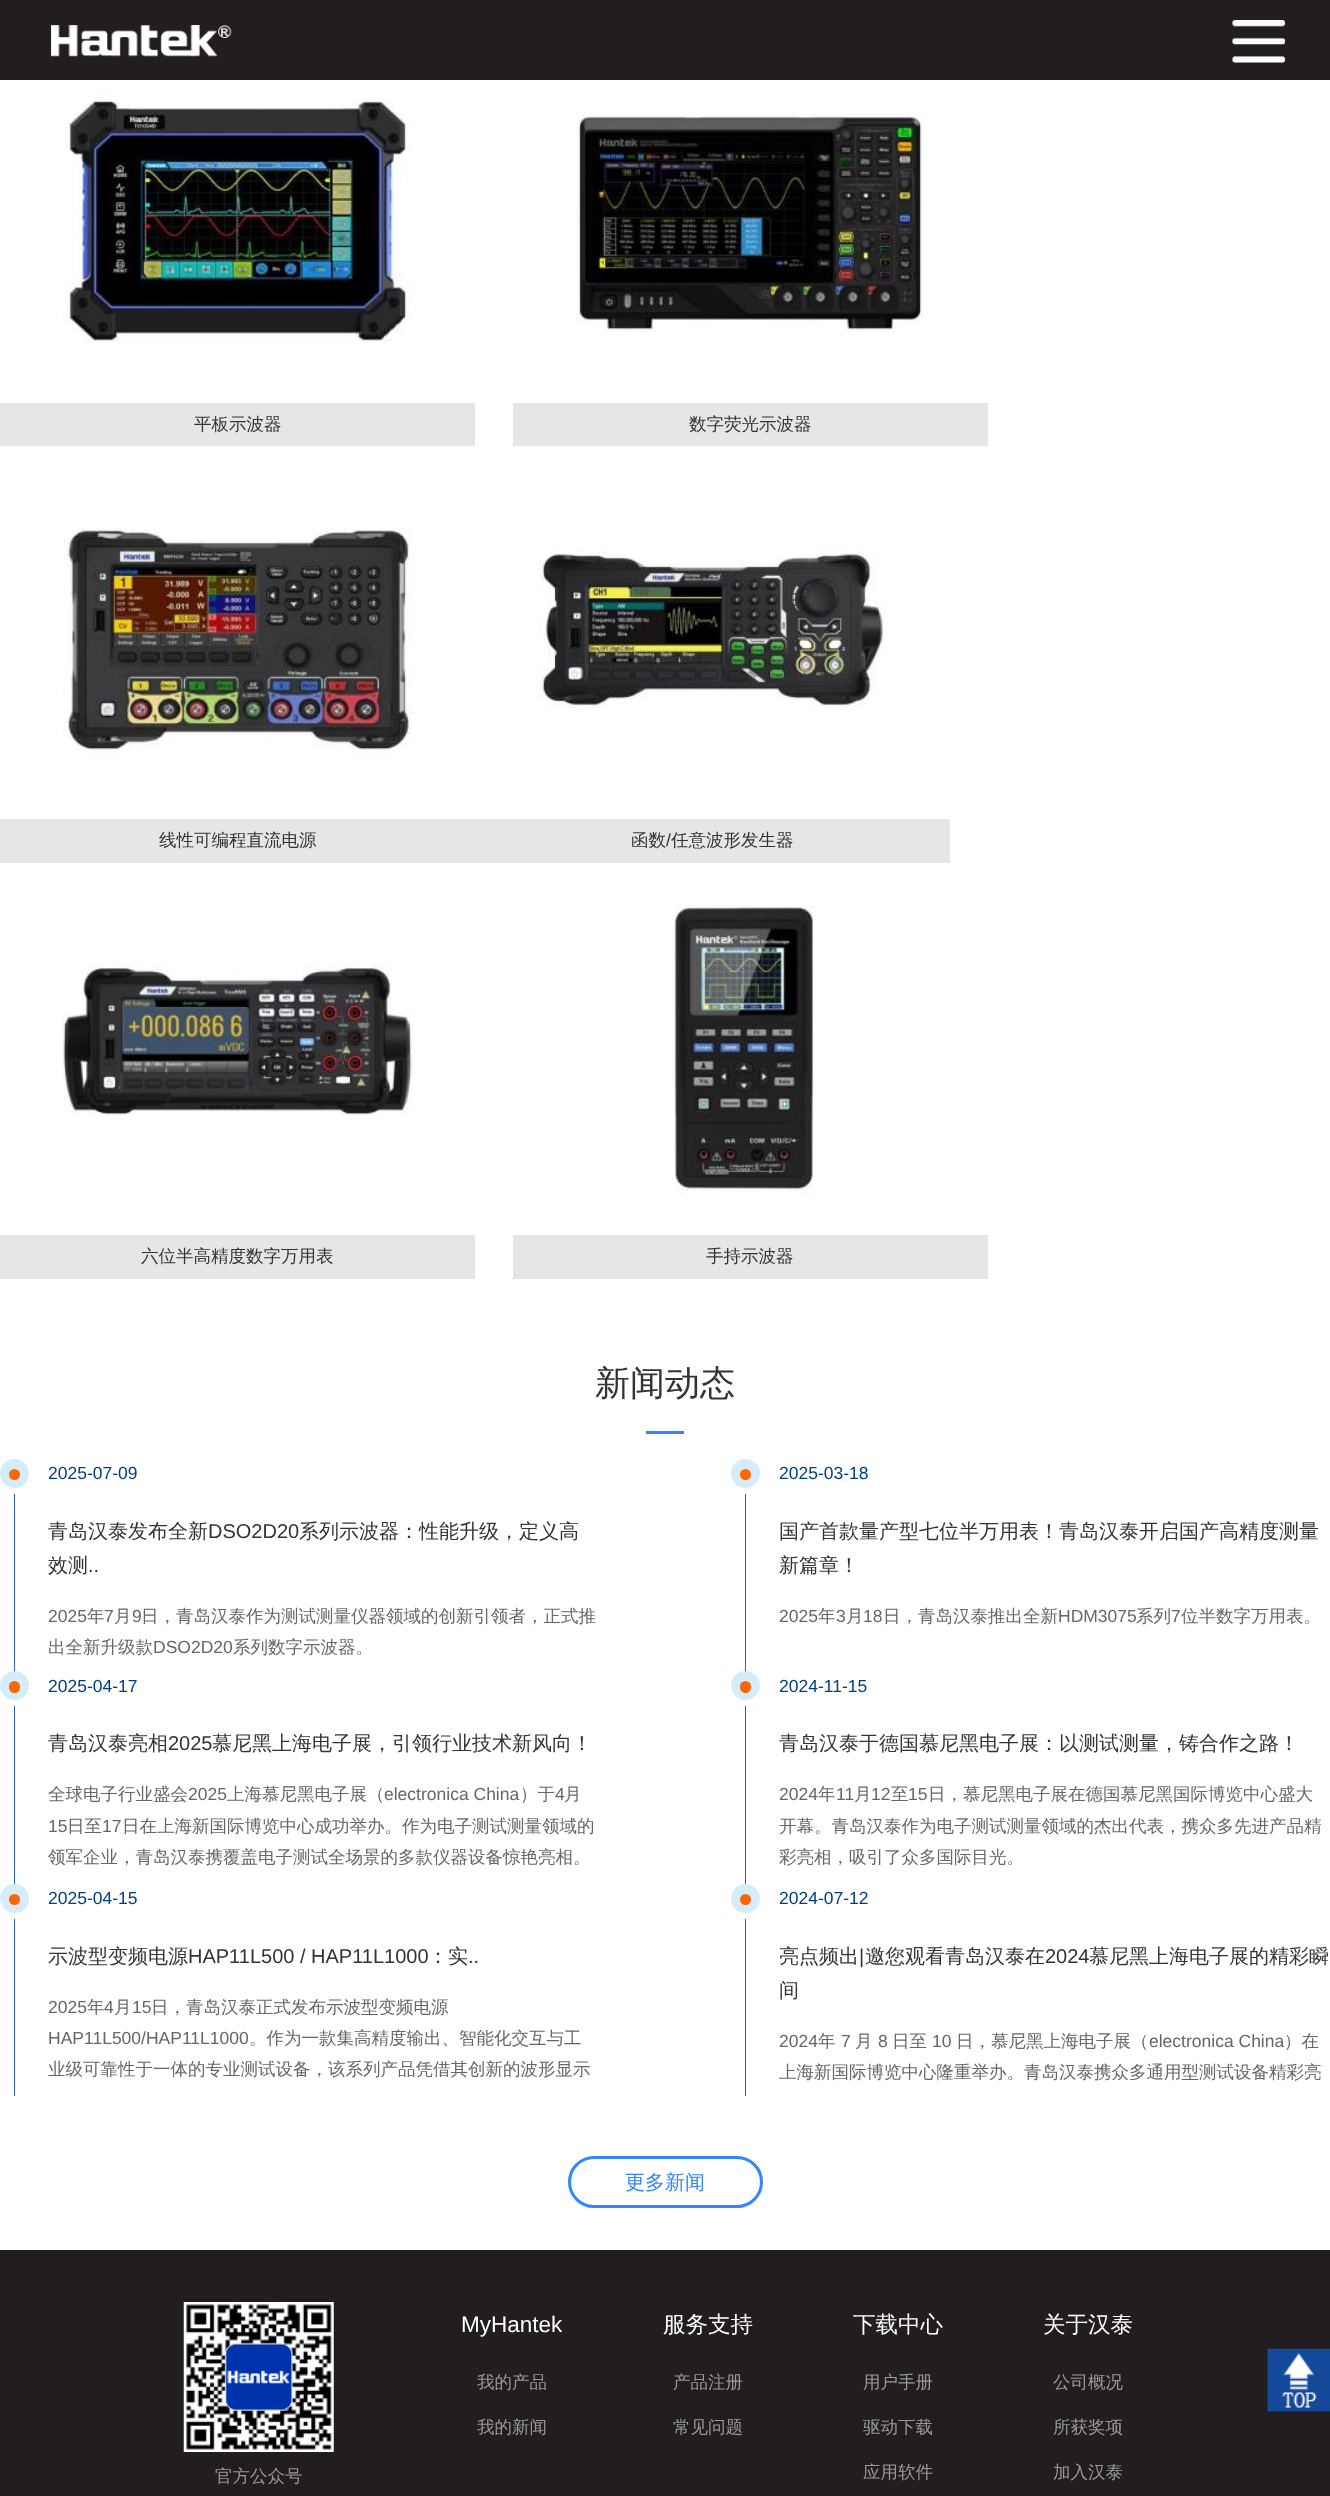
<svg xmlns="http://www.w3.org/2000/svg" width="1330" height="2496">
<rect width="100%" height="100%" fill="#fff"/>
<rect width="1330" height="80" fill="#221e1f"/>
<image x="51" y="25" width="181" height="32" href="media/1.png"/>
<image x="1232" y="20" width="54" height="43" href="media/2.png"/>
<rect y="403" width="475" height="43" fill="#e6e6e6"/>
<image x="62" y="93" width="351" height="249" href="media/3.png"/>
<text x="194" y="430" style="font-family:WenQuanYi Zen Hei;font-size:17.5px;font-weight:500;fill:#333">平板示波器</text>
<rect x="513" y="403" width="475" height="43" fill="#e6e6e6"/>
<image x="575" y="112" width="350" height="220" href="media/4.png"/>
<text x="689" y="430" style="font-family:WenQuanYi Zen Hei;font-size:17.5px;font-weight:500;fill:#333">数字荧光示波器</text>
<rect y="819" width="950" height="44" fill="#e6e6e6"/>
<image x="62" y="528" width="351" height="229" href="media/5.png"/>
<text x="159" y="846" style="font-family:WenQuanYi Zen Hei;font-size:17.5px;font-weight:500;fill:#333">线性可编程直流电源</text>
<image x="537" y="549" width="350" height="159" href="media/6.png"/>
<text x="631" y="846" style="font-family:WenQuanYi Zen Hei;font-size:17.5px;font-weight:500;fill:#333">函数</text>
<text x="666" y="846" style="font-family:Liberation Sans;font-size:17.5px;fill:#333">/</text>
<text x="671" y="846" style="font-family:WenQuanYi Zen Hei;font-size:17.5px;font-weight:500;fill:#333">任意波形发生器</text>
<rect y="1235" width="475" height="44" fill="#e6e6e6"/>
<image x="62" y="965" width="351" height="150" href="media/7.png"/>
<text x="141" y="1262" style="font-family:WenQuanYi Zen Hei;font-size:17.5px;font-weight:500;fill:#333">六位半高精度数字万用表</text>
<rect x="513" y="1235" width="475" height="44" fill="#e6e6e6"/>
<image x="674" y="904" width="141" height="290" href="media/8.png"/>
<text x="706" y="1262" style="font-family:WenQuanYi Zen Hei;font-size:17.5px;font-weight:500;fill:#333">手持示波器</text>
<text x="595" y="1395" style="font-family:WenQuanYi Zen Hei;font-size:35px;font-weight:500;fill:#333">新闻动态</text>
<rect x="646" y="1431" width="38" height="3" fill="#3385ff"/>
<circle cx="14.5" cy="1473.5" r="14.5" fill="#d5ecfb"/>
<circle cx="14.5" cy="1474.5" r="5.5" fill="#f60"/>
<rect x="14" y="1494" width="1" height="177" fill="#325cc7"/>
<text x="48" y="1479" style="font-family:Liberation Sans;font-size:17.5px;fill:#003d83">2025-07-09</text>
<text x="48" y="1538" style="font-family:WenQuanYi Zen Hei;font-size:20px;font-weight:500;fill:#333">青岛汉泰发布全新</text>
<text x="208" y="1538" style="font-family:Liberation Sans;font-size:20px;fill:#333">DSO2D20</text>
<text x="299" y="1538" style="font-family:WenQuanYi Zen Hei;font-size:20px;font-weight:500;fill:#333">系列示波器：性能升级，定义高</text>
<text x="48" y="1572" style="font-family:WenQuanYi Zen Hei;font-size:20px;font-weight:500;fill:#333">效测</text>
<text x="88" y="1572" style="font-family:Liberation Sans;font-size:20px;fill:#333">..</text>
<text x="48" y="1622" style="font-family:Liberation Sans;font-size:17.5px;fill:#666">2025</text>
<text x="87" y="1622" style="font-family:WenQuanYi Zen Hei;font-size:17.5px;font-weight:500;fill:#666">年</text>
<text x="104" y="1622" style="font-family:Liberation Sans;font-size:17.5px;fill:#666">7</text>
<text x="114" y="1622" style="font-family:WenQuanYi Zen Hei;font-size:17.5px;font-weight:500;fill:#666">月</text>
<text x="132" y="1622" style="font-family:Liberation Sans;font-size:17.5px;fill:#666">9</text>
<text x="141" y="1622" style="font-family:WenQuanYi Zen Hei;font-size:17.5px;font-weight:500;fill:#666">日，青岛汉泰作为测试测量仪器领域的创新引领者，正式推</text>
<text x="48" y="1653" style="font-family:WenQuanYi Zen Hei;font-size:17.5px;font-weight:500;fill:#666">出全新升级款</text>
<text x="153" y="1653" style="font-family:Liberation Sans;font-size:17.5px;fill:#666">DSO2D20</text>
<text x="233" y="1653" style="font-family:WenQuanYi Zen Hei;font-size:17.5px;font-weight:500;fill:#666">系列数字示波器。</text>
<circle cx="14.5" cy="1685.5" r="14.5" fill="#d5ecfb"/>
<rect x="9" y="1681" width="11" height="12" rx="5.5" fill="#f60"/>
<rect x="14" y="1706" width="1" height="178" fill="#325cc7"/>
<text x="48" y="1692" style="font-family:Liberation Sans;font-size:17.5px;fill:#003d83">2025-04-17</text>
<text x="48" y="1750" style="font-family:WenQuanYi Zen Hei;font-size:20px;font-weight:500;fill:#333">青岛汉泰亮相</text>
<text x="168" y="1750" style="font-family:Liberation Sans;font-size:20px;fill:#333">2025</text>
<text x="212" y="1750" style="font-family:WenQuanYi Zen Hei;font-size:20px;font-weight:500;fill:#333">慕尼黑上海电子展，引领行业技术新风向！</text>
<text x="48" y="1800" style="font-family:WenQuanYi Zen Hei;font-size:17.5px;font-weight:500;fill:#666">全球电子行业盛会</text>
<text x="188" y="1800" style="font-family:Liberation Sans;font-size:17.5px;fill:#666">2025</text>
<text x="227" y="1800" style="font-family:WenQuanYi Zen Hei;font-size:17.5px;font-weight:500;fill:#666">上海慕尼黑电子展（</text>
<text x="384" y="1800" style="font-family:Liberation Sans;font-size:17.5px;fill:#666">electronica China</text>
<text x="520" y="1800" style="font-family:WenQuanYi Zen Hei;font-size:17.5px;font-weight:500;fill:#666">）于</text>
<text x="555" y="1800" style="font-family:Liberation Sans;font-size:17.5px;fill:#666">4</text>
<text x="564" y="1800" style="font-family:WenQuanYi Zen Hei;font-size:17.5px;font-weight:500;fill:#666">月</text>
<text x="48" y="1832" style="font-family:Liberation Sans;font-size:17.5px;fill:#666">15</text>
<text x="67" y="1832" style="font-family:WenQuanYi Zen Hei;font-size:17.5px;font-weight:500;fill:#666">日至</text>
<text x="102" y="1832" style="font-family:Liberation Sans;font-size:17.5px;fill:#666">17</text>
<text x="122" y="1832" style="font-family:WenQuanYi Zen Hei;font-size:17.5px;font-weight:500;fill:#666">日在上海新国际博览中心成功举办。作为电子测试测量领域的</text>
<text x="48" y="1863" style="font-family:WenQuanYi Zen Hei;font-size:17.5px;font-weight:500;fill:#666">领军企业，青岛汉泰携覆盖电子测试全场景的多款仪器设备惊艳亮相。</text>
<circle cx="14.5" cy="1898.5" r="14.5" fill="#d5ecfb"/>
<circle cx="14.5" cy="1899.5" r="5.5" fill="#f60"/>
<rect x="14" y="1919" width="1" height="177" fill="#325cc7"/>
<text x="48" y="1904" style="font-family:Liberation Sans;font-size:17.5px;fill:#003d83">2025-04-15</text>
<text x="48" y="1963" style="font-family:WenQuanYi Zen Hei;font-size:20px;font-weight:500;fill:#333">示波型变频电源</text>
<text x="188" y="1963" style="font-family:Liberation Sans;font-size:20px;fill:#333">HAP11L500 / HAP11L1000</text>
<text x="428" y="1963" style="font-family:WenQuanYi Zen Hei;font-size:20px;font-weight:500;fill:#333">：实</text>
<text x="468" y="1963" style="font-family:Liberation Sans;font-size:20px;fill:#333">..</text>
<text x="48" y="2013" style="font-family:Liberation Sans;font-size:17.5px;fill:#666">2025</text>
<text x="87" y="2013" style="font-family:WenQuanYi Zen Hei;font-size:17.5px;font-weight:500;fill:#666">年</text>
<text x="104" y="2013" style="font-family:Liberation Sans;font-size:17.5px;fill:#666">4</text>
<text x="114" y="2013" style="font-family:WenQuanYi Zen Hei;font-size:17.5px;font-weight:500;fill:#666">月</text>
<text x="132" y="2013" style="font-family:Liberation Sans;font-size:17.5px;fill:#666">15</text>
<text x="151" y="2013" style="font-family:WenQuanYi Zen Hei;font-size:17.5px;font-weight:500;fill:#666">日，青岛汉泰正式发布示波型变频电源</text>
<text x="48" y="2044" style="font-family:Liberation Sans;font-size:17.5px;fill:#666">HAP11L500/HAP11L1000</text>
<text x="249" y="2044" style="font-family:WenQuanYi Zen Hei;font-size:17.5px;font-weight:500;fill:#666">。作为一款集高精度输出、智能化交互与工</text>
<text x="48" y="2075" style="font-family:WenQuanYi Zen Hei;font-size:17.5px;font-weight:500;fill:#666">业级可靠性于一体的专业测试设备，该系列产品凭借其创新的波形显示</text>
<circle cx="745.5" cy="1473.5" r="14.5" fill="#d5ecfb"/>
<circle cx="745.5" cy="1474.5" r="5.5" fill="#f60"/>
<rect x="745" y="1494" width="1" height="177" fill="#325cc7"/>
<text x="779" y="1479" style="font-family:Liberation Sans;font-size:17.5px;fill:#003d83">2025-03-18</text>
<text x="779" y="1538" style="font-family:WenQuanYi Zen Hei;font-size:20px;font-weight:500;fill:#333">国产首款量产型七位半万用表！青岛汉泰开启国产高精度测量</text>
<text x="779" y="1572" style="font-family:WenQuanYi Zen Hei;font-size:20px;font-weight:500;fill:#333">新篇章！</text>
<text x="779" y="1622" style="font-family:Liberation Sans;font-size:17.5px;fill:#666">2025</text>
<text x="818" y="1622" style="font-family:WenQuanYi Zen Hei;font-size:17.5px;font-weight:500;fill:#666">年</text>
<text x="836" y="1622" style="font-family:Liberation Sans;font-size:17.5px;fill:#666">3</text>
<text x="846" y="1622" style="font-family:WenQuanYi Zen Hei;font-size:17.5px;font-weight:500;fill:#666">月</text>
<text x="863" y="1622" style="font-family:Liberation Sans;font-size:17.5px;fill:#666">18</text>
<text x="883" y="1622" style="font-family:WenQuanYi Zen Hei;font-size:17.5px;font-weight:500;fill:#666">日，青岛汉泰推出全新</text>
<text x="1058" y="1622" style="font-family:Liberation Sans;font-size:17.5px;fill:#666">HDM3075</text>
<text x="1136" y="1622" style="font-family:WenQuanYi Zen Hei;font-size:17.5px;font-weight:500;fill:#666">系列</text>
<text x="1171" y="1622" style="font-family:Liberation Sans;font-size:17.5px;fill:#666">7</text>
<text x="1181" y="1622" style="font-family:WenQuanYi Zen Hei;font-size:17.5px;font-weight:500;fill:#666">位半数字万用表。</text>
<circle cx="745.5" cy="1685.5" r="14.5" fill="#d5ecfb"/>
<rect x="740" y="1681" width="11" height="12" rx="5.5" fill="#f60"/>
<rect x="745" y="1706" width="1" height="178" fill="#325cc7"/>
<text x="779" y="1692" style="font-family:Liberation Sans;font-size:17.5px;fill:#003d83">2024-11-15</text>
<text x="779" y="1750" style="font-family:WenQuanYi Zen Hei;font-size:20px;font-weight:500;fill:#333">青岛汉泰于德国慕尼黑电子展：以测试测量，铸合作之路！</text>
<text x="779" y="1800" style="font-family:Liberation Sans;font-size:17.5px;fill:#666">2024</text>
<text x="818" y="1800" style="font-family:WenQuanYi Zen Hei;font-size:17.5px;font-weight:500;fill:#666">年</text>
<text x="836" y="1800" style="font-family:Liberation Sans;font-size:17.5px;fill:#666">11</text>
<text x="854" y="1800" style="font-family:WenQuanYi Zen Hei;font-size:17.5px;font-weight:500;fill:#666">月</text>
<text x="871" y="1800" style="font-family:Liberation Sans;font-size:17.5px;fill:#666">12</text>
<text x="891" y="1800" style="font-family:WenQuanYi Zen Hei;font-size:17.5px;font-weight:500;fill:#666">至</text>
<text x="908" y="1800" style="font-family:Liberation Sans;font-size:17.5px;fill:#666">15</text>
<text x="928" y="1800" style="font-family:WenQuanYi Zen Hei;font-size:17.5px;font-weight:500;fill:#666">日，慕尼黑电子展在德国慕尼黑国际博览中心盛大</text>
<text x="779" y="1832" style="font-family:WenQuanYi Zen Hei;font-size:17.5px;font-weight:500;fill:#666">开幕。青岛汉泰作为电子测试测量领域的杰出代表，携众多先进产品精</text>
<text x="779" y="1863" style="font-family:WenQuanYi Zen Hei;font-size:17.5px;font-weight:500;fill:#666">彩亮相，吸引了众多国际目光。</text>
<circle cx="745.5" cy="1898.5" r="14.5" fill="#d5ecfb"/>
<circle cx="745.5" cy="1899.5" r="5.5" fill="#f60"/>
<rect x="745" y="1919" width="1" height="177" fill="#325cc7"/>
<text x="779" y="1904" style="font-family:Liberation Sans;font-size:17.5px;fill:#003d83">2024-07-12</text>
<text x="779" y="1963" style="font-family:WenQuanYi Zen Hei;font-size:20px;font-weight:500;fill:#333">亮点频出</text>
<text x="859" y="1963" style="font-family:Liberation Sans;font-size:20px;fill:#333">|</text>
<text x="865" y="1963" style="font-family:WenQuanYi Zen Hei;font-size:20px;font-weight:500;fill:#333">邀您观看青岛汉泰在</text>
<text x="1045" y="1963" style="font-family:Liberation Sans;font-size:20px;fill:#333">2024</text>
<text x="1089" y="1963" style="font-family:WenQuanYi Zen Hei;font-size:20px;font-weight:500;fill:#333">慕尼黑上海电子展的精彩瞬</text>
<text x="779" y="1997" style="font-family:WenQuanYi Zen Hei;font-size:20px;font-weight:500;fill:#333">间</text>
<text x="779" y="2047" style="font-family:Liberation Sans;font-size:17.5px;fill:#666">2024</text>
<text x="818" y="2047" style="font-family:WenQuanYi Zen Hei;font-size:17.5px;font-weight:500;fill:#666">年</text>
<text x="841" y="2047" style="font-family:Liberation Sans;font-size:17.5px;fill:#666">7</text>
<text x="855" y="2047" style="font-family:WenQuanYi Zen Hei;font-size:17.5px;font-weight:500;fill:#666">月</text>
<text x="878" y="2047" style="font-family:Liberation Sans;font-size:17.5px;fill:#666">8</text>
<text x="892" y="2047" style="font-family:WenQuanYi Zen Hei;font-size:17.5px;font-weight:500;fill:#666">日至</text>
<text x="932" y="2047" style="font-family:Liberation Sans;font-size:17.5px;fill:#666">10</text>
<text x="956" y="2047" style="font-family:WenQuanYi Zen Hei;font-size:17.5px;font-weight:500;fill:#666">日，慕尼黑上海电子展（</text>
<text x="1149" y="2047" style="font-family:Liberation Sans;font-size:17.5px;fill:#666">electronica China</text>
<text x="1284" y="2047" style="font-family:WenQuanYi Zen Hei;font-size:17.5px;font-weight:500;fill:#666">）在</text>
<text x="779" y="2078" style="font-family:WenQuanYi Zen Hei;font-size:17.5px;font-weight:500;fill:#666">上海新国际博览中心隆重举办。青岛汉泰携众多通用型测试设备精彩亮</text>
<rect x="569.5" y="2157.5" width="192" height="49" rx="24.5" fill="none" stroke="#3385ff" stroke-width="3"/>
<text x="625" y="2189" style="font-family:WenQuanYi Zen Hei;font-size:20px;font-weight:500;fill:#3385ff">更多新闻</text>
<rect y="2250" width="1330" height="246" fill="#221e1f"/>
<image x="183" y="2302" width="151" height="150" href="media/9.png"/>
<text x="215" y="2482" style="font-family:WenQuanYi Zen Hei;font-size:17.5px;font-weight:500;fill:#999">官方公众号</text>
<text x="461" y="2332" style="font-family:Liberation Sans;font-size:22.5px;fill:#fff">MyHantek</text>
<text x="477" y="2388" style="font-family:WenQuanYi Zen Hei;font-size:17.5px;font-weight:500;fill:#999">我的产品</text>
<text x="477" y="2433" style="font-family:WenQuanYi Zen Hei;font-size:17.5px;font-weight:500;fill:#999">我的新闻</text>
<text x="663" y="2332" style="font-family:WenQuanYi Zen Hei;font-size:22.5px;font-weight:500;fill:#fff">服务支持</text>
<text x="673" y="2388" style="font-family:WenQuanYi Zen Hei;font-size:17.5px;font-weight:500;fill:#999">产品注册</text>
<text x="673" y="2433" style="font-family:WenQuanYi Zen Hei;font-size:17.5px;font-weight:500;fill:#999">常见问题</text>
<text x="853" y="2332" style="font-family:WenQuanYi Zen Hei;font-size:22.5px;font-weight:500;fill:#fff">下载中心</text>
<text x="863" y="2388" style="font-family:WenQuanYi Zen Hei;font-size:17.5px;font-weight:500;fill:#999">用户手册</text>
<text x="863" y="2433" style="font-family:WenQuanYi Zen Hei;font-size:17.5px;font-weight:500;fill:#999">驱动下载</text>
<text x="863" y="2478" style="font-family:WenQuanYi Zen Hei;font-size:17.5px;font-weight:500;fill:#999">应用软件</text>
<text x="1043" y="2332" style="font-family:WenQuanYi Zen Hei;font-size:22.5px;font-weight:500;fill:#fff">关于汉泰</text>
<text x="1053" y="2388" style="font-family:WenQuanYi Zen Hei;font-size:17.5px;font-weight:500;fill:#999">公司概况</text>
<text x="1053" y="2433" style="font-family:WenQuanYi Zen Hei;font-size:17.5px;font-weight:500;fill:#999">所获奖项</text>
<text x="1053" y="2478" style="font-family:WenQuanYi Zen Hei;font-size:17.5px;font-weight:500;fill:#999">加入汉泰</text>
<image x="1267" y="2348" width="63" height="64" href="media/10.png"/>
</svg>
